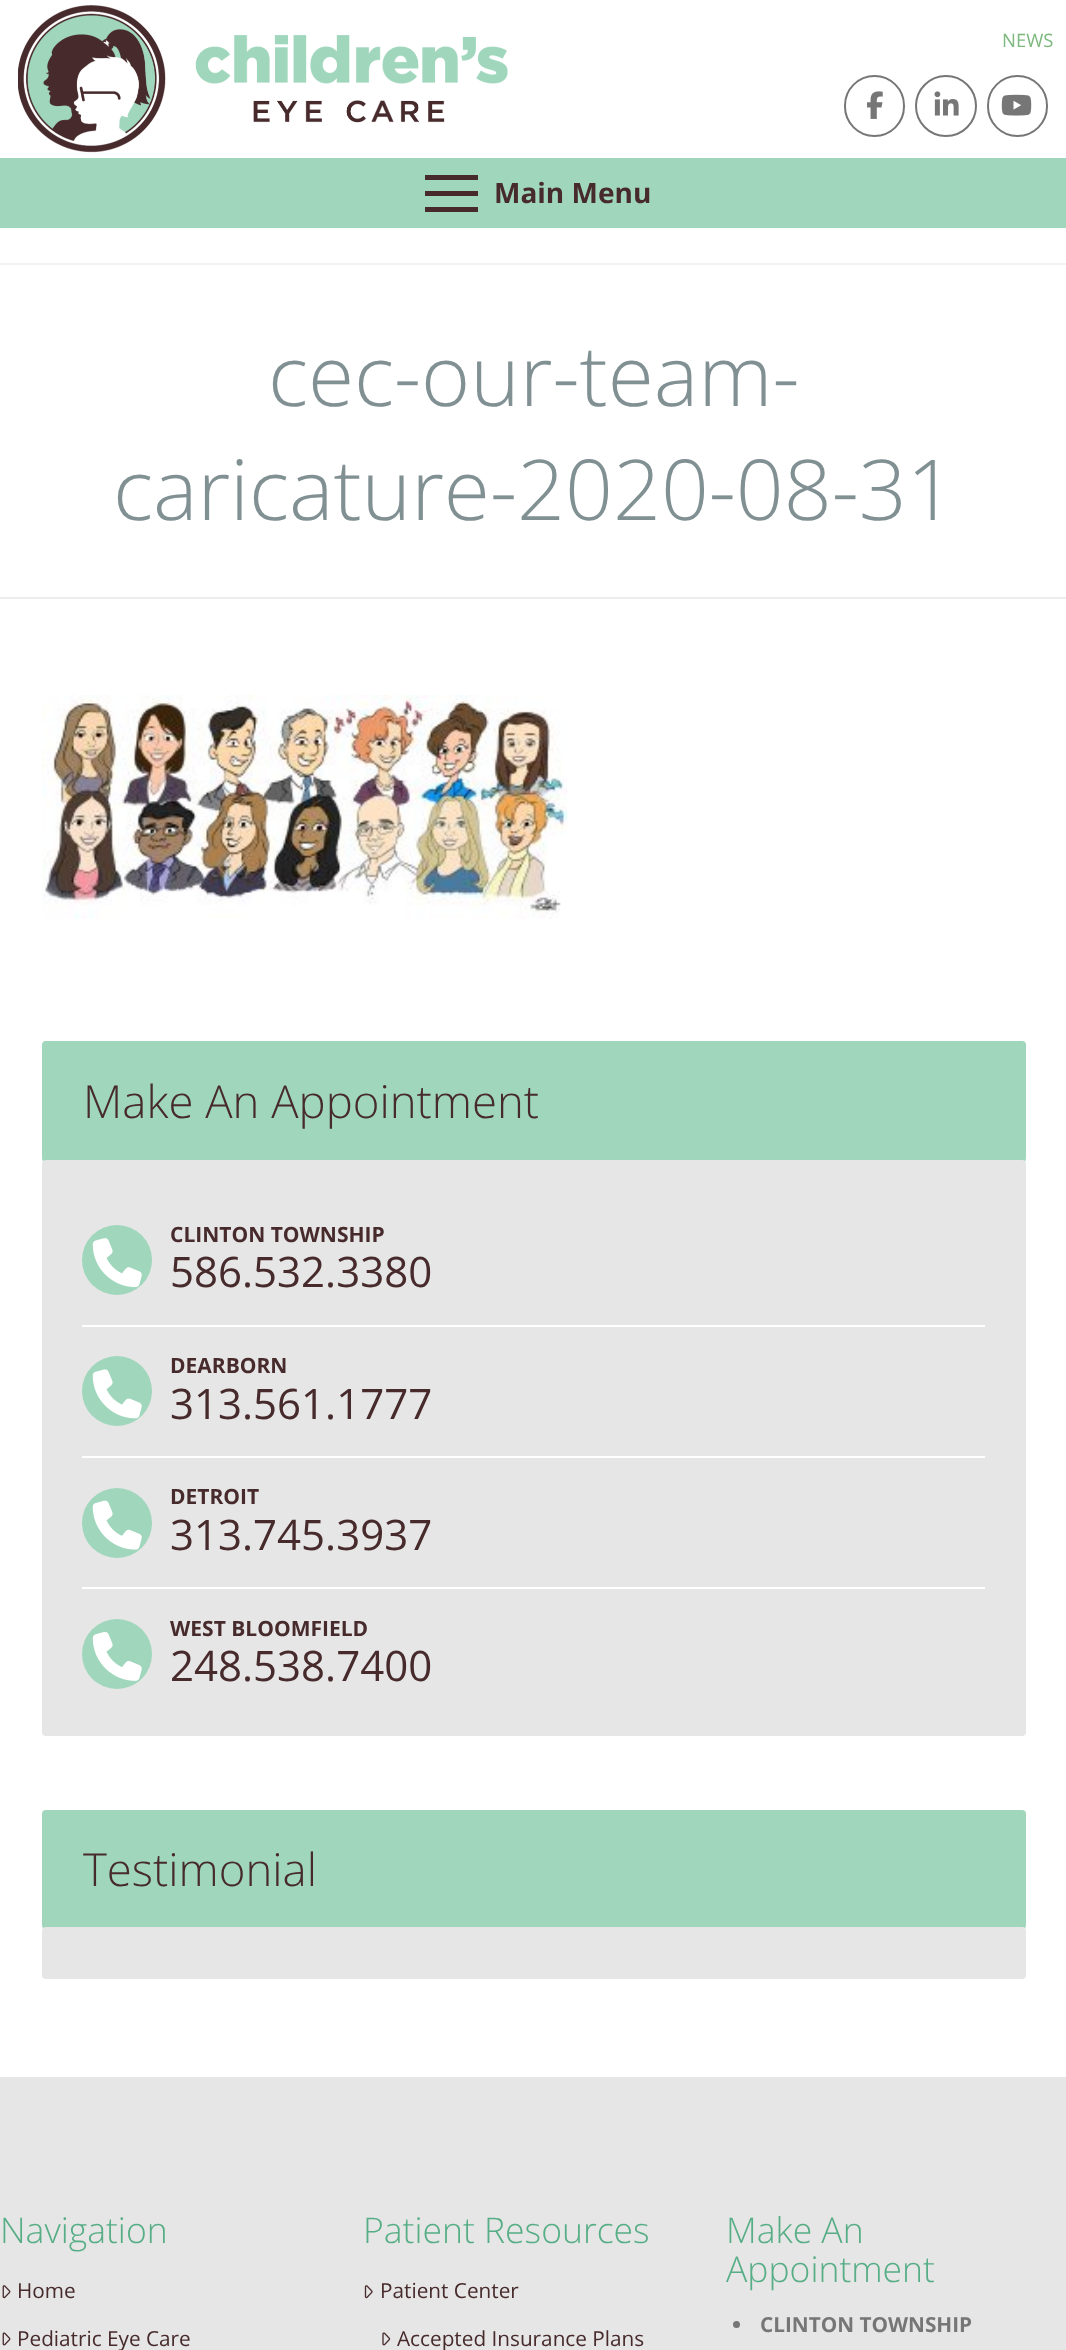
<svg xmlns="http://www.w3.org/2000/svg" width="1066" height="2350">
<rect width="100%" height="100%" fill="#fff"/>
<image x="18" y="5" width="490" height="148" href="media/1.png"/>
<text x="1002" y="47" style="font-family:Open Sans;font-size:18.5px;fill:#7db87f">NEWS</text>
<rect x="845" y="76" width="59" height="60" rx="29.5" fill="none" stroke="#767676" stroke-width="2"/>
<image x="867" y="91" width="16" height="28" href="media/2.png"/>
<circle cx="946" cy="106" r="30" fill="none" stroke="#767676" stroke-width="2"/>
<image x="934" y="91" width="25" height="25" href="media/3.png"/>
<rect x="988" y="76" width="59" height="60" rx="29.5" fill="none" stroke="#767676" stroke-width="2"/>
<image x="1001" y="94" width="31" height="22" href="media/4.png"/>
<rect y="158" width="1066" height="70" fill="#9fd6bc"/>
<rect x="425" y="175" width="53" height="5" fill="#472a2b"/>
<rect x="425" y="191" width="53" height="5" fill="#472a2b"/>
<rect x="425" y="207" width="53" height="5" fill="#472a2b"/>
<text x="494" y="203" style="font-family:Open Sans;font-size:28px;font-weight:bold;fill:#472a2b">Main Menu</text>
<rect y="263" width="1066" height="2" fill="#f2f2f2"/>
<rect y="597" width="1066" height="2" fill="#ededed"/>
<text x="268" y="406" style="font-family:Open Sans;font-size:84px;font-weight:300;fill:#819093">cec-our-team-</text>
<text x="113" y="520" style="font-family:Open Sans;font-size:84px;font-weight:300;fill:#819093">caricature-2020-08-31</text>
<image x="42" y="695" width="525" height="224" href="media/5.png"/>
<rect x="42" y="1041" width="984" height="121" rx="4" fill="#9fd6bc"/>
<text x="83" y="1118" style="font-family:Open Sans;font-size:45.5px;font-weight:300;fill:#472a2b">Make An Appointment</text>
<rect x="42" y="1160" width="984" height="576" rx="4" fill="#e6e6e6"/>
<rect x="82" y="1325" width="903" height="2" fill="#fff"/>
<circle cx="117" cy="1260" r="35" fill="#9fd6bc"/>
<image x="92" y="1238" width="50" height="50" href="media/6.png"/>
<text x="170" y="1242" style="font-family:Open Sans;font-size:21px;font-weight:bold;fill:#472a2b">CLINTON TOWNSHIP</text>
<text x="170" y="1287" style="font-family:Open Sans;font-size:42px;fill:#472a2b">586.532.3380</text>
<rect x="82" y="1456" width="903" height="2" fill="#fff"/>
<circle cx="117" cy="1391" r="35" fill="#9fd6bc"/>
<image x="92" y="1369" width="50" height="50" href="media/7.png"/>
<text x="170" y="1373" style="font-family:Open Sans;font-size:21px;font-weight:bold;fill:#472a2b">DEARBORN</text>
<text x="170" y="1419" style="font-family:Open Sans;font-size:42px;fill:#472a2b">313.561.1777</text>
<rect x="82" y="1587" width="903" height="2" fill="#fff"/>
<circle cx="117" cy="1523" r="35" fill="#9fd6bc"/>
<image x="92" y="1500" width="50" height="50" href="media/8.png"/>
<text x="170" y="1504" style="font-family:Open Sans;font-size:21px;font-weight:bold;fill:#472a2b">DETROIT</text>
<text x="170" y="1550" style="font-family:Open Sans;font-size:42px;fill:#472a2b">313.745.3937</text>
<circle cx="117" cy="1654" r="35" fill="#9fd6bc"/>
<image x="92" y="1631" width="50" height="50" href="media/9.png"/>
<text x="170" y="1636" style="font-family:Open Sans;font-size:21px;font-weight:bold;fill:#472a2b">WEST BLOOMFIELD</text>
<text x="170" y="1681" style="font-family:Open Sans;font-size:42px;fill:#472a2b">248.538.7400</text>
<rect x="42" y="1810" width="984" height="119" rx="4" fill="#9fd6bc"/>
<text x="83" y="1886" style="font-family:Open Sans;font-size:45.5px;font-weight:300;fill:#472a2b">Testimonial</text>
<rect x="42" y="1927" width="984" height="52" rx="4" fill="#e6e6e6"/>
<rect y="2077" width="1066" height="273" fill="#e6e6e6"/>
<text x="0" y="2243" style="font-family:Open Sans;font-size:35.5px;font-weight:300;fill:#57ae86">Navigation</text>
<image x="2" y="2285" width="9" height="14" href="media/10.png"/>
<text x="17" y="2298" style="font-family:Open Sans;font-size:20.75px;fill:#472a2b">Home</text>
<image x="2" y="2332" width="9" height="14" href="media/11.png"/>
<text x="17" y="2346" style="font-family:Open Sans;font-size:20.75px;fill:#472a2b">Pediatric Eye Care</text>
<text x="363" y="2243" style="font-family:Open Sans;font-size:35.5px;font-weight:300;fill:#57ae86">Patient Resources</text>
<image x="364" y="2285" width="9" height="14" href="media/12.png"/>
<text x="380" y="2298" style="font-family:Open Sans;font-size:20.75px;fill:#472a2b">Patient Center</text>
<image x="382" y="2332" width="9" height="14" href="media/13.png"/>
<text x="397" y="2346" style="font-family:Open Sans;font-size:20.75px;fill:#472a2b">Accepted Insurance Plans</text>
<text x="726" y="2243" style="font-family:Open Sans;font-size:35.5px;font-weight:300;fill:#57ae86">Make An</text>
<text x="726" y="2282" style="font-family:Open Sans;font-size:35.5px;font-weight:300;fill:#57ae86">Appointment</text>
<circle cx="736.5" cy="2324.5" r="3.5" fill="#767676"/>
<text x="760" y="2332" style="font-family:Open Sans;font-size:20.75px;font-weight:bold;fill:#767676">CLINTON TOWNSHIP</text>
</svg>
